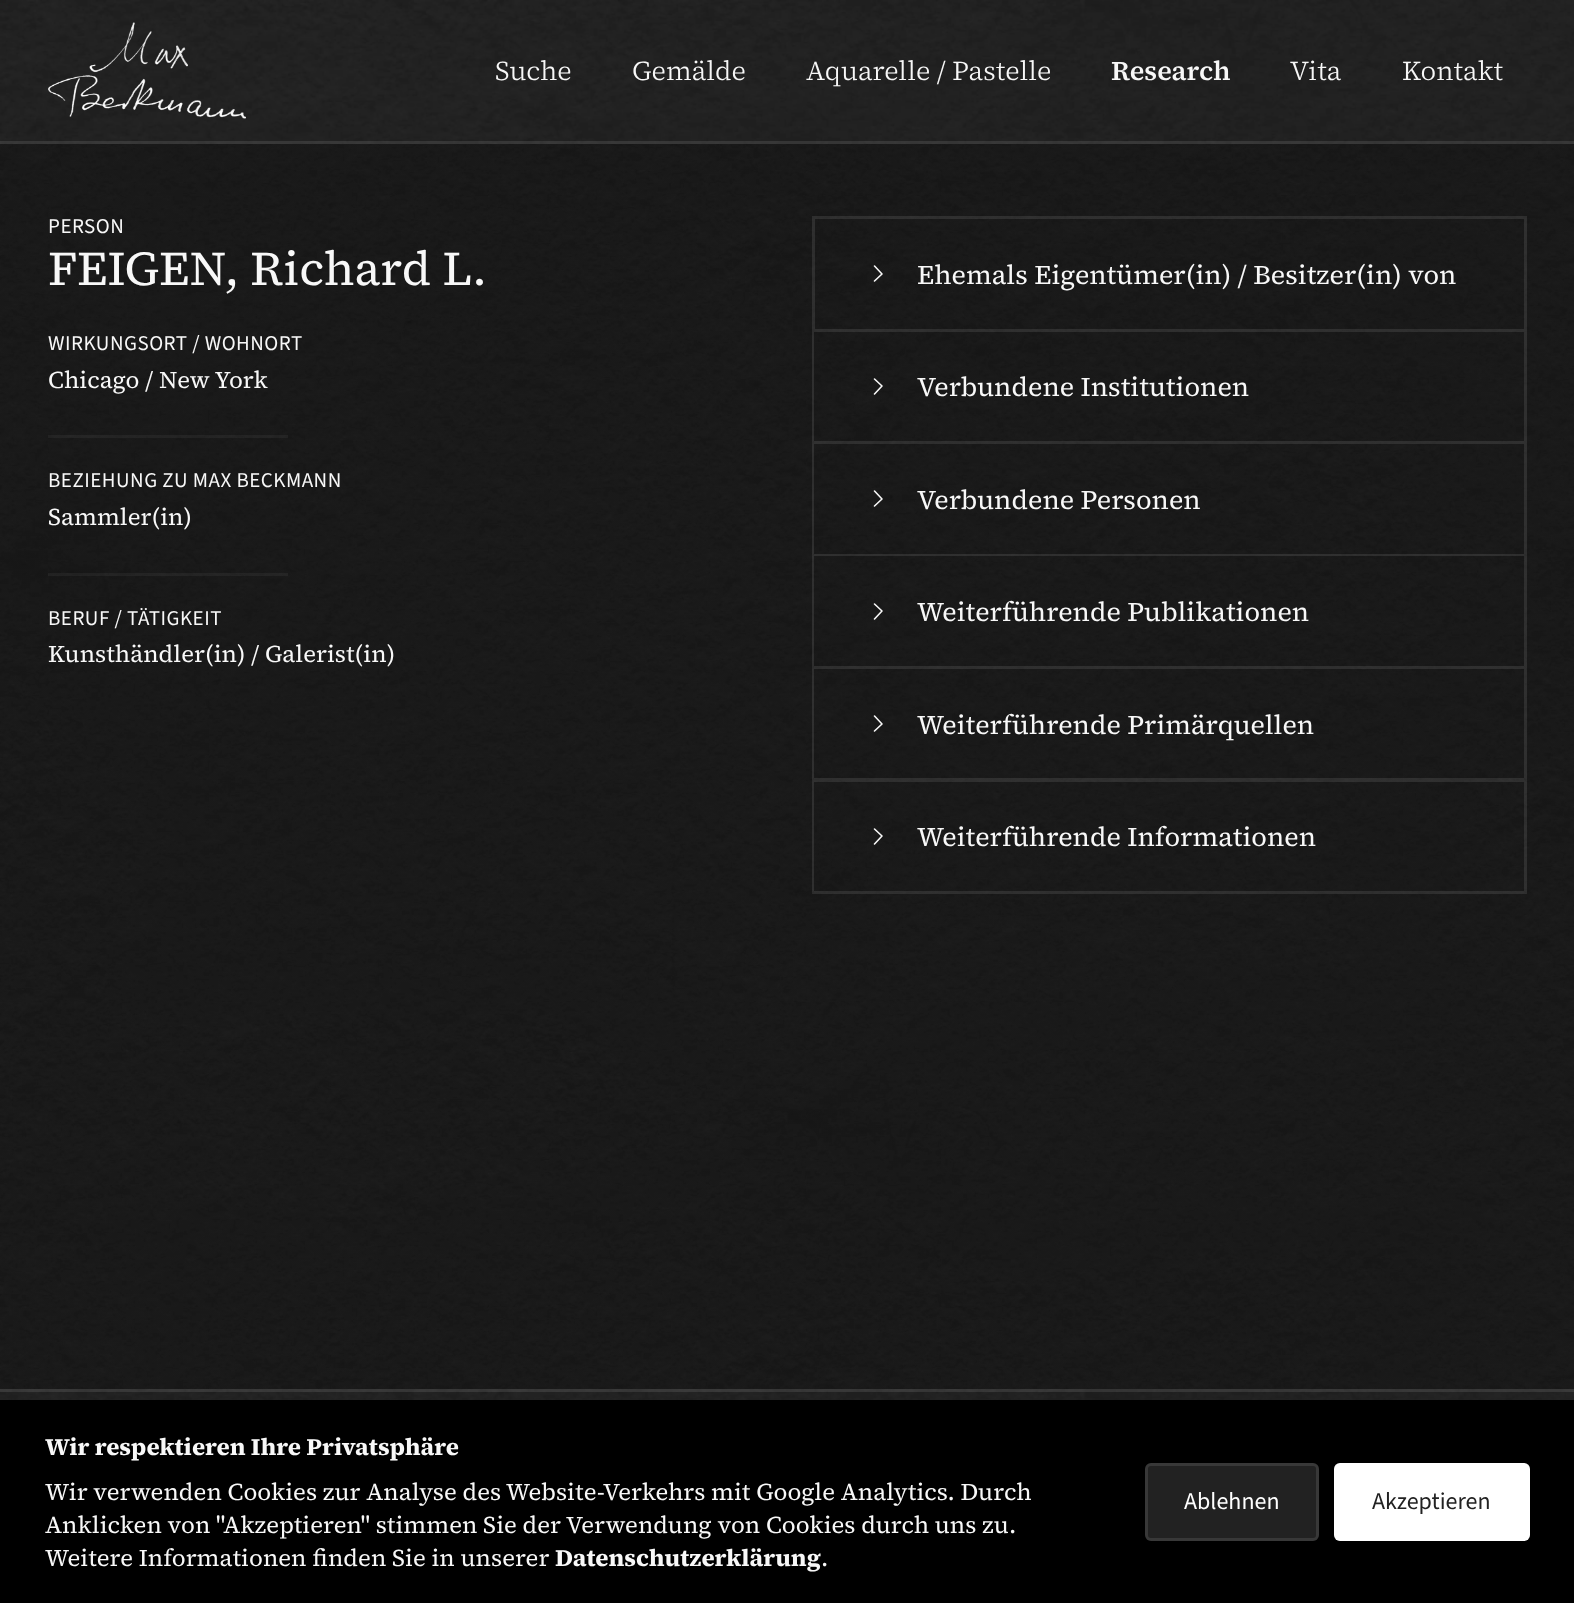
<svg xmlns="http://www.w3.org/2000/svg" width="1574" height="1603">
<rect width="100%" height="100%" fill="#fff"/>
<image x="0" y="144" width="1574" height="1245" href="media/1.png"/>
<image x="0" y="0" width="1574" height="144" href="media/2.png"/>
<rect y="141" width="1574" height="3" fill="#ffffff1a"/>
<image x="48" y="22" width="198" height="97" href="media/3.png"/>
<text x="495" y="80" style="font-family:'Source Serif 4';font-size:27px;font-weight:300;fill:#f8f8f8">Suche</text>
<text x="632" y="80" style="font-family:'Source Serif 4';font-size:27px;font-weight:300;fill:#f8f8f8">Gemälde</text>
<text x="806" y="80" style="font-family:'Source Serif 4';font-size:27px;font-weight:300;fill:#f8f8f8">Aquarelle / Pastelle</text>
<text x="1111" y="80" style="font-family:'Source Serif 4';font-size:27px;font-weight:600;fill:#f8f8f8">Research</text>
<text x="1290" y="80" style="font-family:'Source Serif 4';font-size:27px;font-weight:300;fill:#f8f8f8">Vita</text>
<text x="1402" y="80" style="font-family:'Source Serif 4';font-size:27px;font-weight:300;fill:#f8f8f8">Kontakt</text>
<text x="48" y="233" style="font-family:'Source Sans 3';font-size:21px;letter-spacing:0.5px;fill:#f8f8f8">PERSON</text>
<text x="48" y="285" style="font-family:'Source Serif 4';font-size:48px;fill:#f8f8f8">FEIGEN, Richard L.</text>
<text x="48" y="350" style="font-family:'Source Sans 3';font-size:21px;letter-spacing:0.5px;fill:#f8f8f8">WIRKUNGSORT / WOHNORT</text>
<text x="48" y="388" style="font-family:'Source Serif 4';font-size:24px;fill:#f8f8f8">Chicago / New York</text>
<rect x="48" y="435" width="240" height="3" fill="#f8f8f80d"/>
<text x="48" y="487" style="font-family:'Source Sans 3';font-size:21px;letter-spacing:0.5px;fill:#f8f8f8">BEZIEHUNG ZU MAX BECKMANN</text>
<text x="48" y="525" style="font-family:'Source Serif 4';font-size:24px;fill:#f8f8f8">Sammler(in)</text>
<rect x="48" y="573" width="240" height="3" fill="#f8f8f80d"/>
<text x="48" y="625" style="font-family:'Source Sans 3';font-size:21px;letter-spacing:0.5px;fill:#f8f8f8">BERUF / TÄTIGKEIT</text>
<text x="48" y="662" style="font-family:'Source Serif 4';font-size:24px;fill:#f8f8f8">Kunsthändler(in) / Galerist(in)</text>
<rect x="813.5" y="217.5" width="712" height="113" fill="none" stroke="#f8f8f81a" stroke-width="3"/>
<path d="M874.5 281l7.5-7l-7.5-8" fill="none" stroke="#f8f8f8" stroke-width="1.6" stroke-linecap="round" stroke-linejoin="round"/>
<text x="917" y="284" style="font-family:'Source Serif 4';font-size:27px;fill:#f8f8f8">Ehemals Eigentümer(in) / Besitzer(in) von</text>
<path d="M1527 332v112l-3-3v-109z" fill="#f8f8f81a"/>
<path d="M1527 444h-715l2-3h710z" fill="#f8f8f81a"/>
<path d="M812 444v-112h2v109z" fill="#f8f8f81a"/>
<path d="M874.5 394l7.5-8l-7.5-7" fill="none" stroke="#f8f8f8" stroke-width="1.6" stroke-linecap="round" stroke-linejoin="round"/>
<text x="917" y="396" style="font-family:'Source Serif 4';font-size:27px;fill:#f8f8f8">Verbundene Institutionen</text>
<path d="M1527 444v112l-3-2v-110z" fill="#f8f8f81a"/>
<path d="M1527 556h-715l2-2h710z" fill="#f8f8f81a"/>
<path d="M812 556v-112h2v110z" fill="#f8f8f81a"/>
<path d="M874.5 506l7.5-7l-7.5-8" fill="none" stroke="#f8f8f8" stroke-width="1.6" stroke-linecap="round" stroke-linejoin="round"/>
<text x="917" y="509" style="font-family:'Source Serif 4';font-size:27px;fill:#f8f8f8">Verbundene Personen</text>
<path d="M1527 556v113l-3-3v-110z" fill="#f8f8f81a"/>
<path d="M1527 669h-715l2-3h710z" fill="#f8f8f81a"/>
<path d="M812 669v-113h2v110z" fill="#f8f8f81a"/>
<path d="M874.5 619l7.5-8l-7.5-7" fill="none" stroke="#f8f8f8" stroke-width="1.6" stroke-linecap="round" stroke-linejoin="round"/>
<text x="917" y="621" style="font-family:'Source Serif 4';font-size:27px;fill:#f8f8f8">Weiterführende Publikationen</text>
<path d="M1527 669v113l-3-4v-109z" fill="#f8f8f81a"/>
<path d="M1527 782h-715l2-4h710z" fill="#f8f8f81a"/>
<path d="M812 782v-113h2v109z" fill="#f8f8f81a"/>
<path d="M874.5 731l7.5-7l-7.5-8" fill="none" stroke="#f8f8f8" stroke-width="1.6" stroke-linecap="round" stroke-linejoin="round"/>
<text x="917" y="734" style="font-family:'Source Serif 4';font-size:27px;fill:#f8f8f8">Weiterführende Primärquellen</text>
<path d="M1527 782v112l-3-3v-109z" fill="#f8f8f81a"/>
<path d="M1527 894h-715l2-3h710z" fill="#f8f8f81a"/>
<path d="M812 894v-112h2v109z" fill="#f8f8f81a"/>
<path d="M874.5 844l7.5-8l-7.5-7" fill="none" stroke="#f8f8f8" stroke-width="1.6" stroke-linecap="round" stroke-linejoin="round"/>
<text x="917" y="846" style="font-family:'Source Serif 4';font-size:27px;fill:#f8f8f8">Weiterführende Informationen</text>
<image x="0" y="1389" width="1574" height="11" href="media/4.png"/>
<rect y="1389" width="1574" height="3" fill="#ffffff1a"/>
<rect y="1400" width="1574" height="203" fill="#000"/>
<text x="45" y="1455" style="font-family:'Source Serif 4';font-size:24px;font-weight:bold;fill:#f8f8f8">Wir respektieren Ihre Privatsphäre</text>
<text x="45" y="1500" style="font-family:'Source Serif 4';font-size:24px;fill:#f8f8f8">Wir verwenden Cookies zur Analyse des Website-Verkehrs mit Google Analytics. Durch</text>
<text x="45" y="1533" style="font-family:'Source Serif 4';font-size:24px;fill:#f8f8f8">Anklicken von "Akzeptieren" stimmen Sie der Verwendung von Cookies durch uns zu.</text>
<text x="45" y="1566" style="font-family:'Source Serif 4';font-size:24px;fill:#f8f8f8">Weitere Informationen finden Sie in unserer</text>
<text x="555" y="1566" style="font-family:'Source Serif 4';font-size:24px;font-weight:bold;fill:#f8f8f8">Datenschutzerklärung</text>
<text x="821" y="1566" style="font-family:'Source Serif 4';font-size:24px;fill:#f8f8f8">.</text>
<rect x="1145" y="1463" width="174" height="78" rx="6" fill="#222"/>
<rect x="1146.5" y="1464.5" width="171" height="75" rx="4.5" fill="none" stroke="#ffffff1a" stroke-width="3"/>
<text x="1184" y="1509" style="font-family:'Source Sans 3';font-size:24px;fill:#fff">Ablehnen</text>
<rect x="1334" y="1463" width="196" height="78" rx="6" fill="#fff"/>
<rect x="1335.5" y="1464.5" width="193" height="75" rx="4.5" fill="none" stroke="#ffffff1a" stroke-width="3"/>
<text x="1372" y="1509" style="font-family:'Source Sans 3';font-size:24px;fill:#222">Akzeptieren</text>
</svg>
